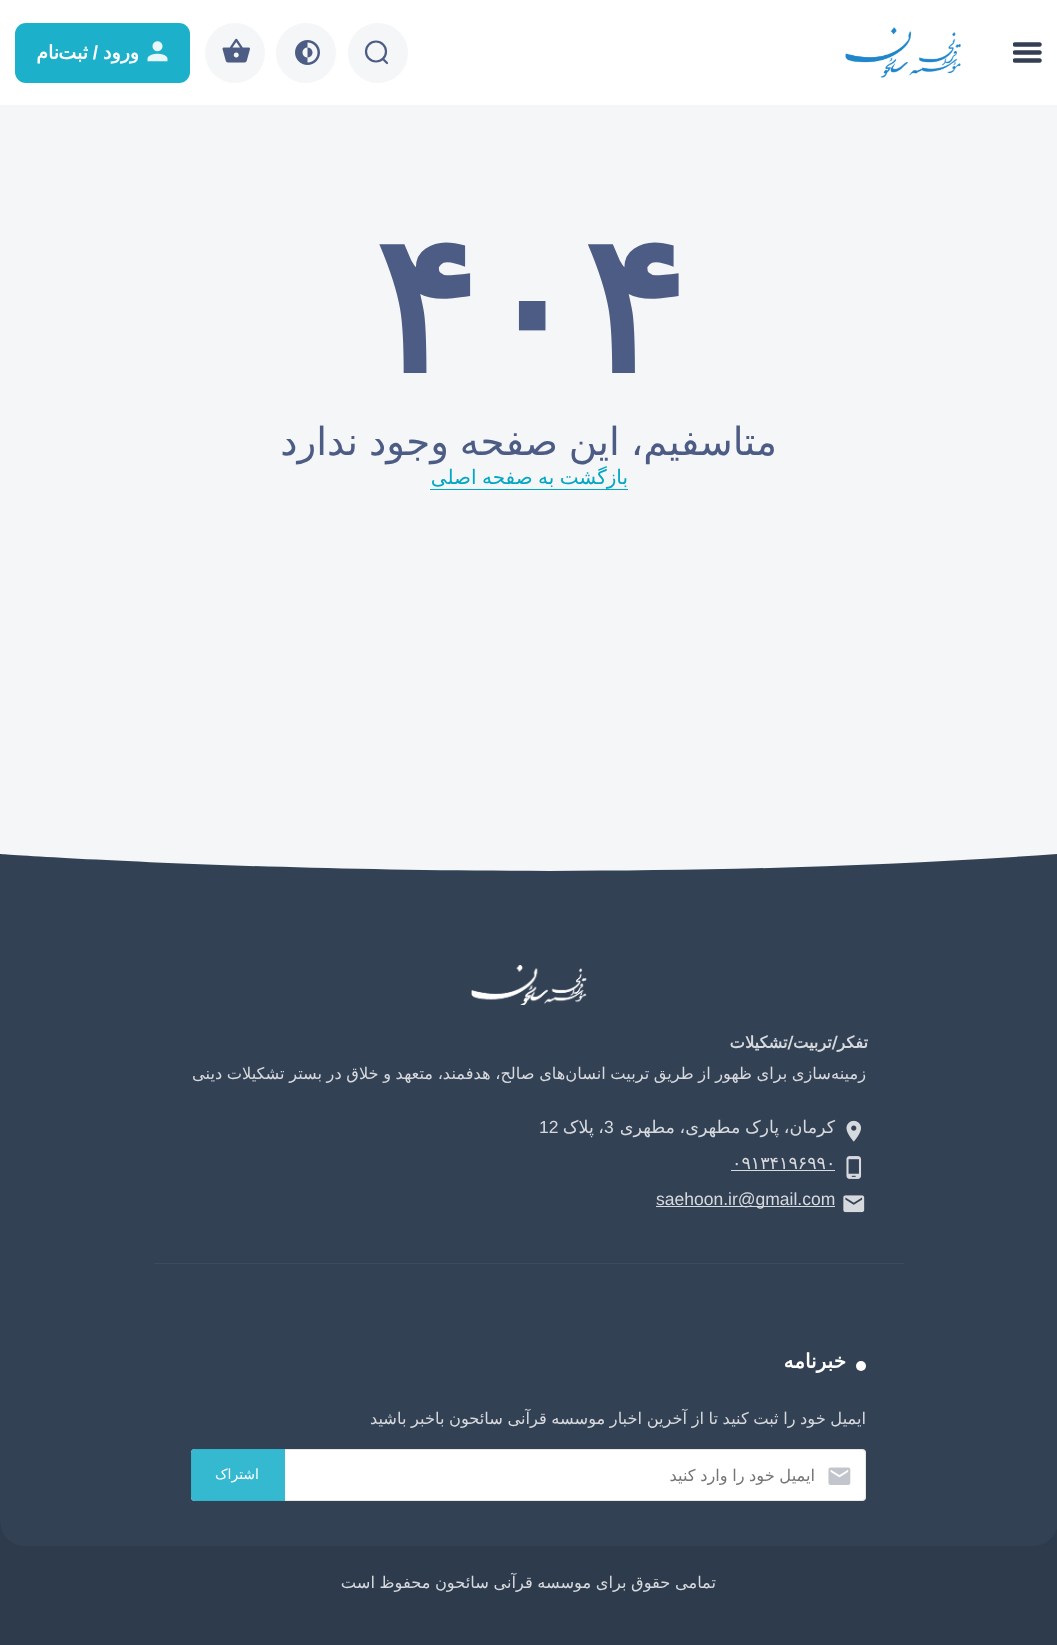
<svg xmlns="http://www.w3.org/2000/svg" width="1057" height="1645">
<defs>
<clipPath id="clip1"><rect x="1013" y="41" width="30" height="23"/></clipPath>
</defs>
<rect width="100%" height="100%" fill="#f4f6f8"/>
<rect width="1057" height="105" fill="#fff"/>
<g clip-path="url(#clip1)">
<path d="M1015 44.5h24.5m-24.5 8h24.5m-24.5 8h24.5" fill="none" stroke="#353f53" stroke-width="4.6" stroke-linecap="round" stroke-linejoin="round"/>
</g>
<image x="845" y="27" width="116" height="51" href="media/1.png"/>
<circle cx="378" cy="53" r="30" fill="#f4f6f8"/>
<circle cx="376" cy="51.5" r="10" fill="none" stroke="#4c5c84" stroke-width="2.2"/>
<path d="M383 59l4 4" fill="none" stroke="#4c5c84" stroke-width="2.2" stroke-linecap="round" stroke-linejoin="round"/>
<circle cx="306" cy="53" r="30" fill="#f4f6f8"/>
<image x="295" y="40" width="25" height="25" href="media/2.png"/>
<circle cx="235" cy="53" r="30" fill="#f4f6f8"/>
<image x="222" y="38" width="28" height="25" href="media/3.png"/>
<rect x="15" y="23" width="175" height="60" rx="11" fill="#1cb0ca"/>
<image x="147" y="41" width="21" height="21" href="media/4.png"/>
<text x="139" y="59" style="font-family:DejaVu Sans;font-size:19px;font-weight:bold;direction:rtl;fill:#fff">ورود</text>
<text x="98" y="59" style="font-family:Liberation Sans;font-size:19px;font-weight:bold;direction:rtl;fill:#fff">/</text>
<text x="88" y="59" style="font-family:DejaVu Sans;font-size:19px;font-weight:bold;direction:rtl;fill:#fff">ثبت</text>
<text x="59" y="59" style="font-family:DejaVu Sans;font-size:19px;font-weight:bold;direction:rtl;fill:#fff">نام</text>
<text x="373" y="373" style="font-family:DejaVu Sans;font-size:194px;font-weight:bold;fill:#4c5c84">۴۰۴</text>
<text x="777" y="455" word-spacing="-1.5" style="font-family:DejaVu Sans;font-size:38.75px;direction:rtl;fill:#4c5c84">متاسفیم، این صفحه وجود ندارد</text>
<text x="628" y="484" word-spacing="-1" style="font-family:DejaVu Sans;font-size:20px;direction:rtl;fill:#03a7c4">بازگشت به صفحه اصلی</text>
<rect x="430" y="489" width="198" height="1" fill="#03a7c4"/>
<path d="M-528 889h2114v-35h-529c-526 38-1057 0-1057 0h-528z" fill="#334155"/>
<rect y="1521" width="1057" height="124" fill="#2e3b4c"/>
<path d="M0 871h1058v650c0 14-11 25-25 25h-1008c-14 0-25-11-25-25z" fill="#334155"/>
<rect x="154" y="1263" width="750" height="1" fill="#3d4b5e"/>
<image x="471" y="965" width="116" height="40" href="media/5.png"/>
<text x="868" y="1048" style="font-family:DejaVu Sans;font-size:16.25px;font-weight:bold;direction:rtl;fill:#d6d9dd">تفکر/تربیت/تشکیلات</text>
<text x="866" y="1079" word-spacing="-0.6" style="font-family:DejaVu Sans;font-size:16.25px;direction:rtl;fill:#d6d9dd">زمینه‌سازی برای ظهور از طریق تربیت انسان‌های صالح، هدفمند، متعهد و خلاق در بستر تشکیلات دینی</text>
<image x="846" y="1120" width="15" height="22" href="media/6.png"/>
<text x="835" y="1133" word-spacing="-1" style="font-family:DejaVu Sans;font-size:17.5px;direction:rtl;fill:#d6d9dd">کرمان، پارک مطهری، مطهری</text>
<text x="604" y="1133" style="font-family:Liberation Sans;font-size:17.5px;fill:#d6d9dd">3</text>
<text x="604" y="1133" word-spacing="-1" style="font-family:DejaVu Sans;font-size:17.5px;direction:rtl;fill:#d6d9dd">، پلاک</text>
<text x="539" y="1133" style="font-family:Liberation Sans;font-size:17.5px;fill:#d6d9dd">12</text>
<image x="846" y="1156" width="16" height="23" href="media/7.png"/>
<text x="732" y="1169" style="font-family:DejaVu Sans;font-size:17.5px;fill:#d6d9dd">۰۹۱۳۴۱۹۶۹۹۰</text>
<rect x="731" y="1170" width="104" height="1" fill="#d6d9dd"/>
<image x="843" y="1195" width="22" height="18" href="media/8.png"/>
<rect x="656" y="1206" width="179" height="1" fill="#d6d9dd"/>
<text x="656" y="1205" style="font-family:Liberation Sans;font-size:17.5px;fill:#d6d9dd">saehoon.ir@gmail.com</text>
<circle cx="861" cy="1366" r="5" fill="#fff"/>
<text x="846" y="1368" style="font-family:DejaVu Sans;font-size:20px;font-weight:bold;direction:rtl;fill:#fff">خبرنامه</text>
<text x="866" y="1424" word-spacing="-0.6" style="font-family:DejaVu Sans;font-size:16.25px;direction:rtl;fill:#d6d9dd">ایمیل خود را ثبت کنید تا از آخرین اخبار موسسه قرآنی سائحون باخبر باشید</text>
<rect x="191" y="1449" width="675" height="52" rx="4" fill="#fff"/>
<rect x="191.5" y="1449.5" width="674" height="51" rx="3.5" fill="none" stroke="#8181812e"/>
<image x="828" y="1467" width="23" height="18" href="media/9.png"/>
<text x="815" y="1481" word-spacing="-0.6" style="font-family:DejaVu Sans;font-size:16.25px;direction:rtl;fill:#757575">ایمیل خود را وارد کنید</text>
<path d="M195 1449h90v52h-90c-2 0-4-2-4-4v-44c0-2 2-4 4-4z" fill="#03a7c4cc"/>
<text x="259" y="1479" style="font-family:DejaVu Sans;font-size:14px;direction:rtl;fill:#fff">اشتراک</text>
<text x="716" y="1588" word-spacing="-0.6" style="font-family:DejaVu Sans;font-size:16.25px;direction:rtl;fill:#d6d9dd">تمامی حقوق برای موسسه قرآنی سائحون محفوظ است</text>
</svg>
